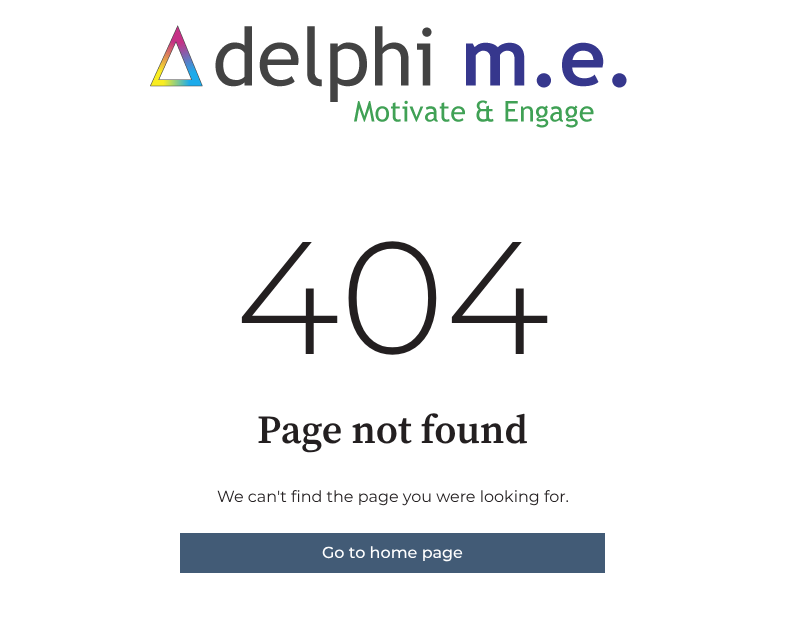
<svg xmlns="http://www.w3.org/2000/svg" width="785" height="643">
<rect width="100%" height="100%" fill="#fff"/>
<image x="150" y="25" width="477" height="103" href="media/1.png"/>
<text x="235" y="354" style="font-family:Montserrat;font-size:160px;font-weight:300;fill:#231f20">404</text>
<text x="257" y="443" style="font-family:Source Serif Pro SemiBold;font-size:40px;font-weight:600;fill:#231f20">Page not found</text>
<text x="217" y="502" style="font-family:Montserrat;font-size:16px;fill:#231f20">We can't find the page you were looking for.</text>
<rect x="180" y="533" width="425" height="40" fill="#425b76"/>
<text x="322" y="558" style="font-family:Montserrat;font-size:16px;font-weight:500;fill:#fff">Go to home page</text>
</svg>
